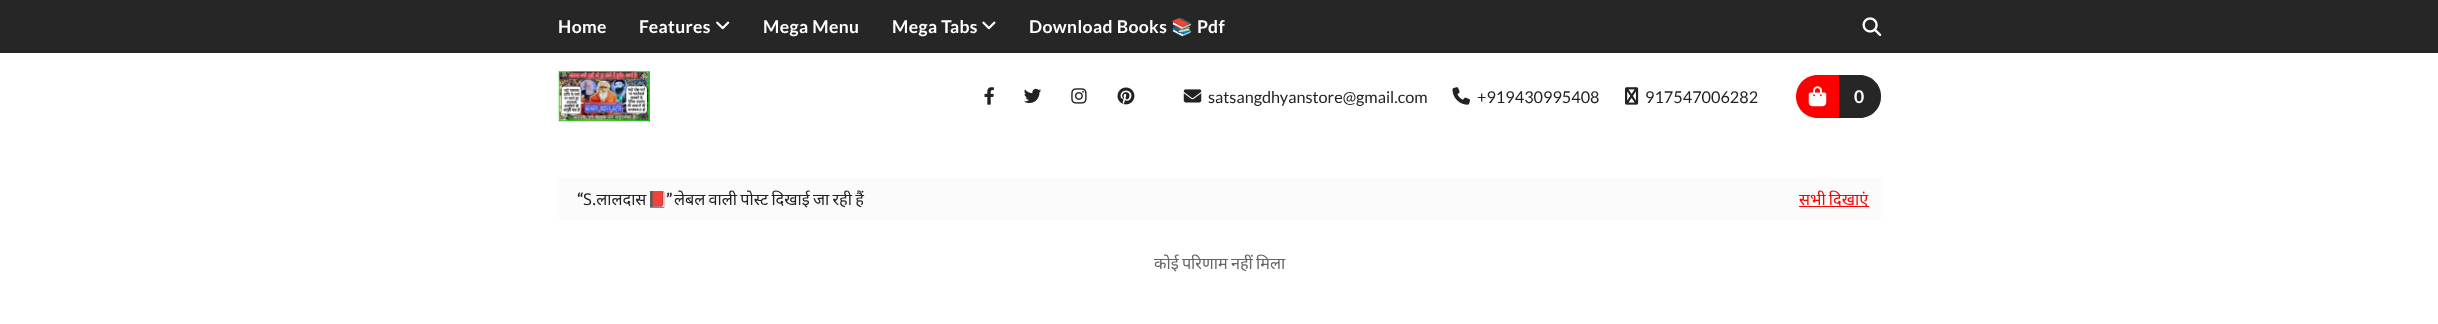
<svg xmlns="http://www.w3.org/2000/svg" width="2438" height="324">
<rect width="100%" height="100%" fill="#fff"/>
<rect width="2438" height="53" fill="#262626"/>
<text x="558" y="33" style="font-family:Lato;font-size:17.5px;font-weight:bold;letter-spacing:0.4px;fill:#fff">Home</text>
<text x="639" y="33" style="font-family:Lato;font-size:17.5px;font-weight:bold;letter-spacing:0.4px;fill:#fff">Features</text>
<image x="716" y="21" width="14" height="9" href="media/1.png"/>
<text x="763" y="33" style="font-family:Lato;font-size:17.5px;font-weight:bold;letter-spacing:0.4px;fill:#fff">Mega Menu</text>
<text x="892" y="33" style="font-family:Lato;font-size:17.5px;font-weight:bold;letter-spacing:0.4px;fill:#fff">Mega Tabs</text>
<image x="982" y="21" width="14" height="9" href="media/2.png"/>
<text x="1029" y="33" style="font-family:Lato;font-size:17.5px;font-weight:bold;letter-spacing:0.4px;fill:#fff">Download Books</text>
<text x="1171" y="33" style="font-family:'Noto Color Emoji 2';font-size:17.5px;font-weight:bold;letter-spacing:0.4px;fill:#fff">📚</text>
<text x="1197" y="33" style="font-family:Lato;font-size:17.5px;font-weight:bold;letter-spacing:0.4px;fill:#fff">Pdf</text>
<image x="1862" y="17" width="20" height="20" href="media/3.png"/>
<image x="558" y="71" width="92" height="51" href="media/4.png"/>
<image x="984" y="87" width="10" height="18" href="media/5.png"/>
<image x="1024" y="88" width="18" height="16" href="media/6.png"/>
<image x="1071" y="88" width="16" height="16" href="media/7.png"/>
<image x="1117" y="87" width="18" height="18" href="media/8.png"/>
<image x="1183" y="89" width="19" height="14" href="media/9.png"/>
<text x="1208" y="103" style="font-family:Lato;font-size:16.25px;fill:#222">satsangdhyanstore@gmail.com</text>
<image x="1452" y="87" width="18" height="18" href="media/10.png"/>
<text x="1477" y="103" style="font-family:Lato;font-size:16.25px;fill:#222">+919430995408</text>
<image x="1625" y="87" width="14" height="18" href="media/11.png"/>
<text x="1645" y="103" style="font-family:Lato;font-size:16.25px;fill:#222">917547006282</text>
<path d="M1817.5 75h21.5v43h-21.5c-12 0-21.5-9.5-21.5-21.5c0-12 9.5-21.5 21.5-21.5z" fill="#f00"/>
<image x="1808" y="86" width="19" height="21" href="media/12.png"/>
<path d="M1839 75h21c11.5 0 21 9.5 21 21v1c0 11.5-9.5 21-21 21h-21z" fill="#262626"/>
<text x="1854" y="103" style="font-family:Lato;font-size:17.5px;font-weight:bold;fill:#fff">0</text>
<rect x="559" y="178" width="1322" height="42" fill="#fbfbfb"/>
<text x="577" y="205" style="font-family:Lato;font-size:16.25px;font-weight:bold;fill:#222">“</text>
<text x="583" y="205" style="font-family:Noto Sans;font-size:16.25px;fill:#222">S.लालदास</text>
<text x="647" y="205" style="font-family:Noto Color Emoji;font-size:16.25px;font-weight:bold;fill:#222">📕</text>
<text x="666" y="205" style="font-family:Lato;font-size:16.25px;font-weight:bold;fill:#222">”</text>
<text x="674" y="205" word-spacing="-1" style="font-family:Noto Sans;font-size:16.25px;fill:#222">लेबल वाली पोस्ट दिखाई जा रही हैं</text>
<rect x="1799" y="206" width="70" height="1" fill="#f00"/>
<text x="1799" y="205" word-spacing="-1" style="font-family:Noto Sans;font-size:16.25px;fill:#f00">सभी दिखाएं</text>
<text x="1154" y="269" word-spacing="-1" style="font-family:Noto Sans;font-size:16.25px;fill:#656565">कोई परिणाम नहीं मिला</text>
</svg>
